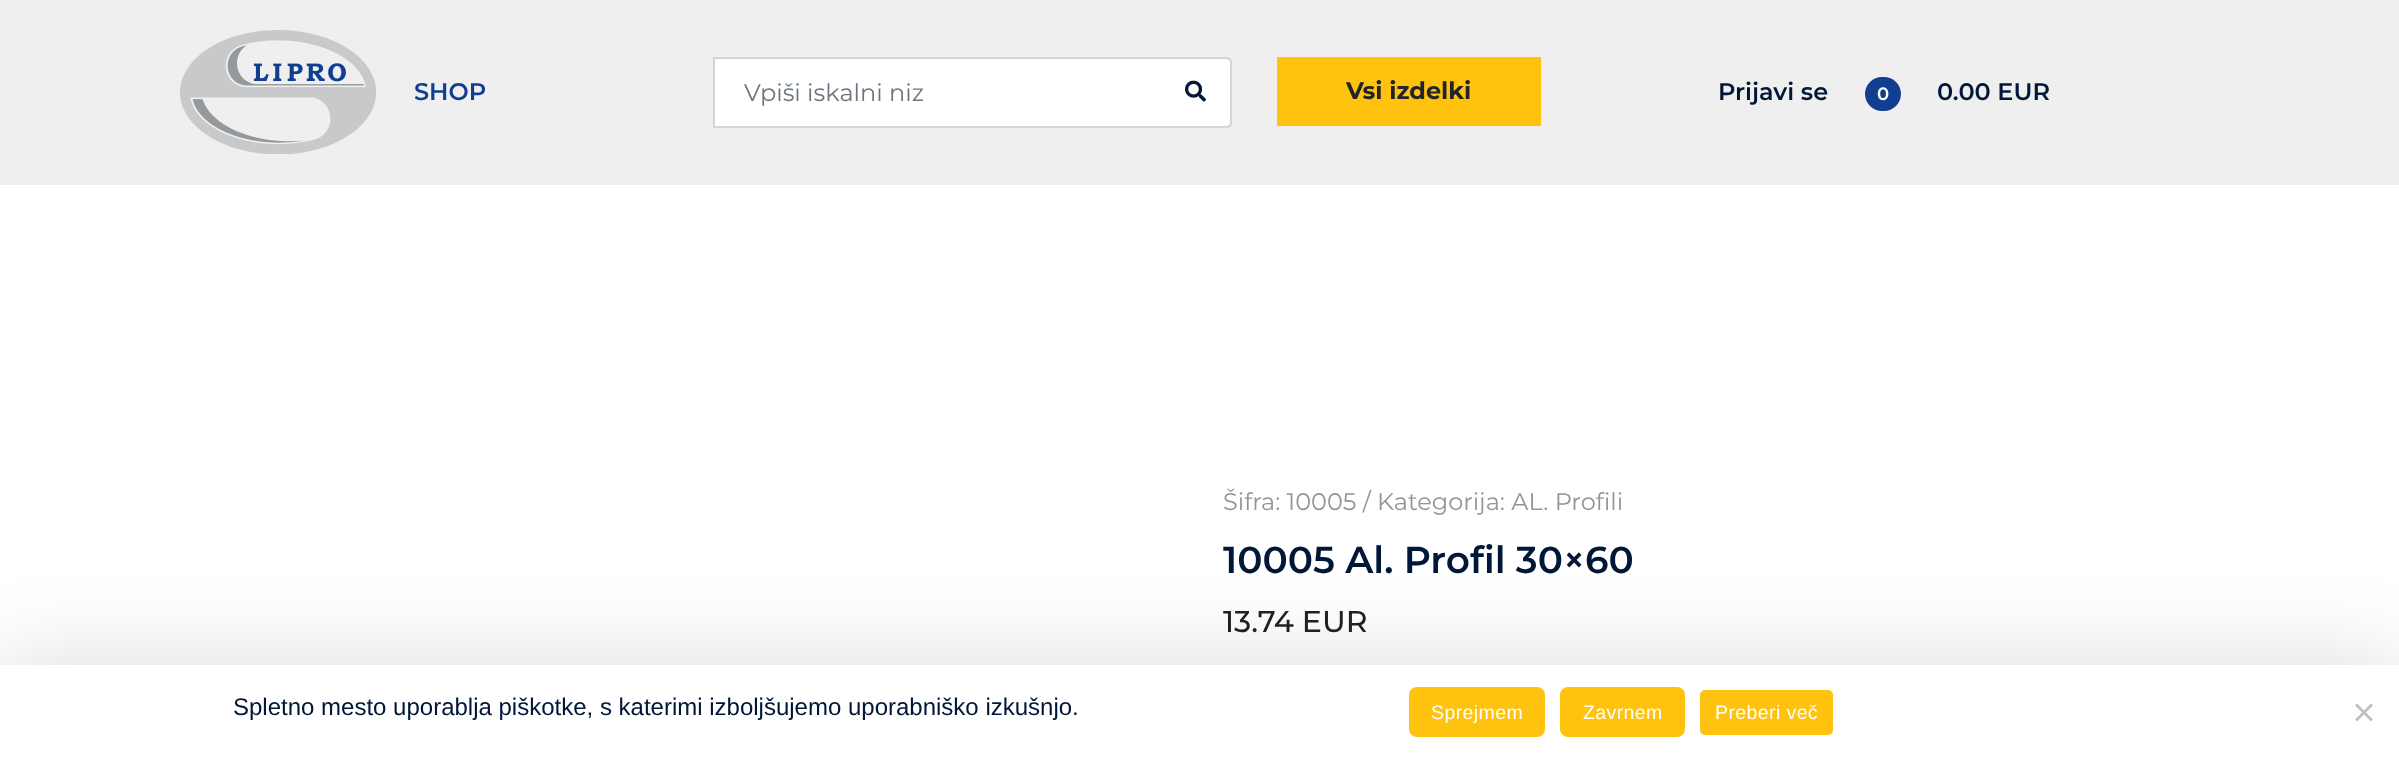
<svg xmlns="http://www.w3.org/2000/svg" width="2399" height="758">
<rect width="100%" height="100%" fill="#fff"/>
<rect width="2399" height="185" fill="#efefef"/>
<image x="180" y="30" width="196" height="124" href="media/1.png"/>
<text x="414" y="100" style="font-family:Montserrat;font-size:24px;font-weight:600;fill:#123e92">SHOP</text>
<path d="M714 58h512c3 0 5 2 5 5v59c0 3-2 5-5 5h-512z" fill="#fff" stroke="#d4d4d4" stroke-width="2"/>
<text x="744" y="101" style="font-family:Montserrat;font-size:24px;fill:#6c757d">Vpiši iskalni niz</text>
<image x="1185" y="80" width="21" height="22" href="media/2.png"/>
<rect x="1277" y="57" width="264" height="69" fill="#ffc20e"/>
<text x="1346" y="99" style="font-family:Montserrat;font-size:24px;font-weight:bold;fill:#212529">Vsi izdelki</text>
<text x="1718" y="100" style="font-family:Montserrat;font-size:24px;font-weight:600;fill:#001737">Prijavi se</text>
<rect x="1865" y="77" width="36" height="34" rx="17" fill="#123e92"/>
<text x="1877" y="100" style="font-family:Montserrat;font-size:18px;font-weight:600;fill:#fff">0</text>
<text x="1937" y="100" style="font-family:Montserrat;font-size:24px;font-weight:600;fill:#001737">0.00 EUR</text>
<text x="1223" y="510" style="font-family:Montserrat;font-size:24px;fill:#949494">Šifra: 10005 / Kategorija: AL. Profili</text>
<text x="1223" y="573" style="font-family:Montserrat;font-size:37.5px;font-weight:600;fill:#001737">10005 Al. Profil 30×60</text>
<text x="1223" y="632" style="font-family:Montserrat;font-size:30px;font-weight:500;fill:#222">13.74 EUR</text>
<rect y="665" width="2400" height="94" fill="#00000026" filter="blur(45px)"/>
<rect y="665" width="2399" height="93" fill="#fff"/>
<text x="233" y="715" style="font-family:Liberation Sans;font-size:24px;fill:#001737">Spletno mesto uporablja piškotke, s katerimi izboljšujemo uporabniško izkušnjo.</text>
<rect x="1409" y="687" width="136" height="50" rx="8" fill="#ffc20e"/>
<text x="1431" y="719" style="font-family:Liberation Sans;font-size:19.5px;letter-spacing:0.4px;fill:#fff">Sprejmem</text>
<rect x="1560" y="687" width="125" height="50" rx="8" fill="#ffc20e"/>
<text x="1583" y="719" style="font-family:Liberation Sans;font-size:19.5px;letter-spacing:0.4px;fill:#fff">Zavrnem</text>
<rect x="1700" y="690" width="133" height="45" rx="5" fill="#ffc20e"/>
<text x="1715" y="719" style="font-family:Liberation Sans;font-size:19.5px;letter-spacing:0.4px;fill:#fff">Preberi več</text>
<path d="M2371 703.5l2 2l-16 16l-2-2z" fill="#c0c0c0"/>
<path d="M2355 705.5l2-2l16 16l-2 2z" fill="#c0c0c0"/>
</svg>
